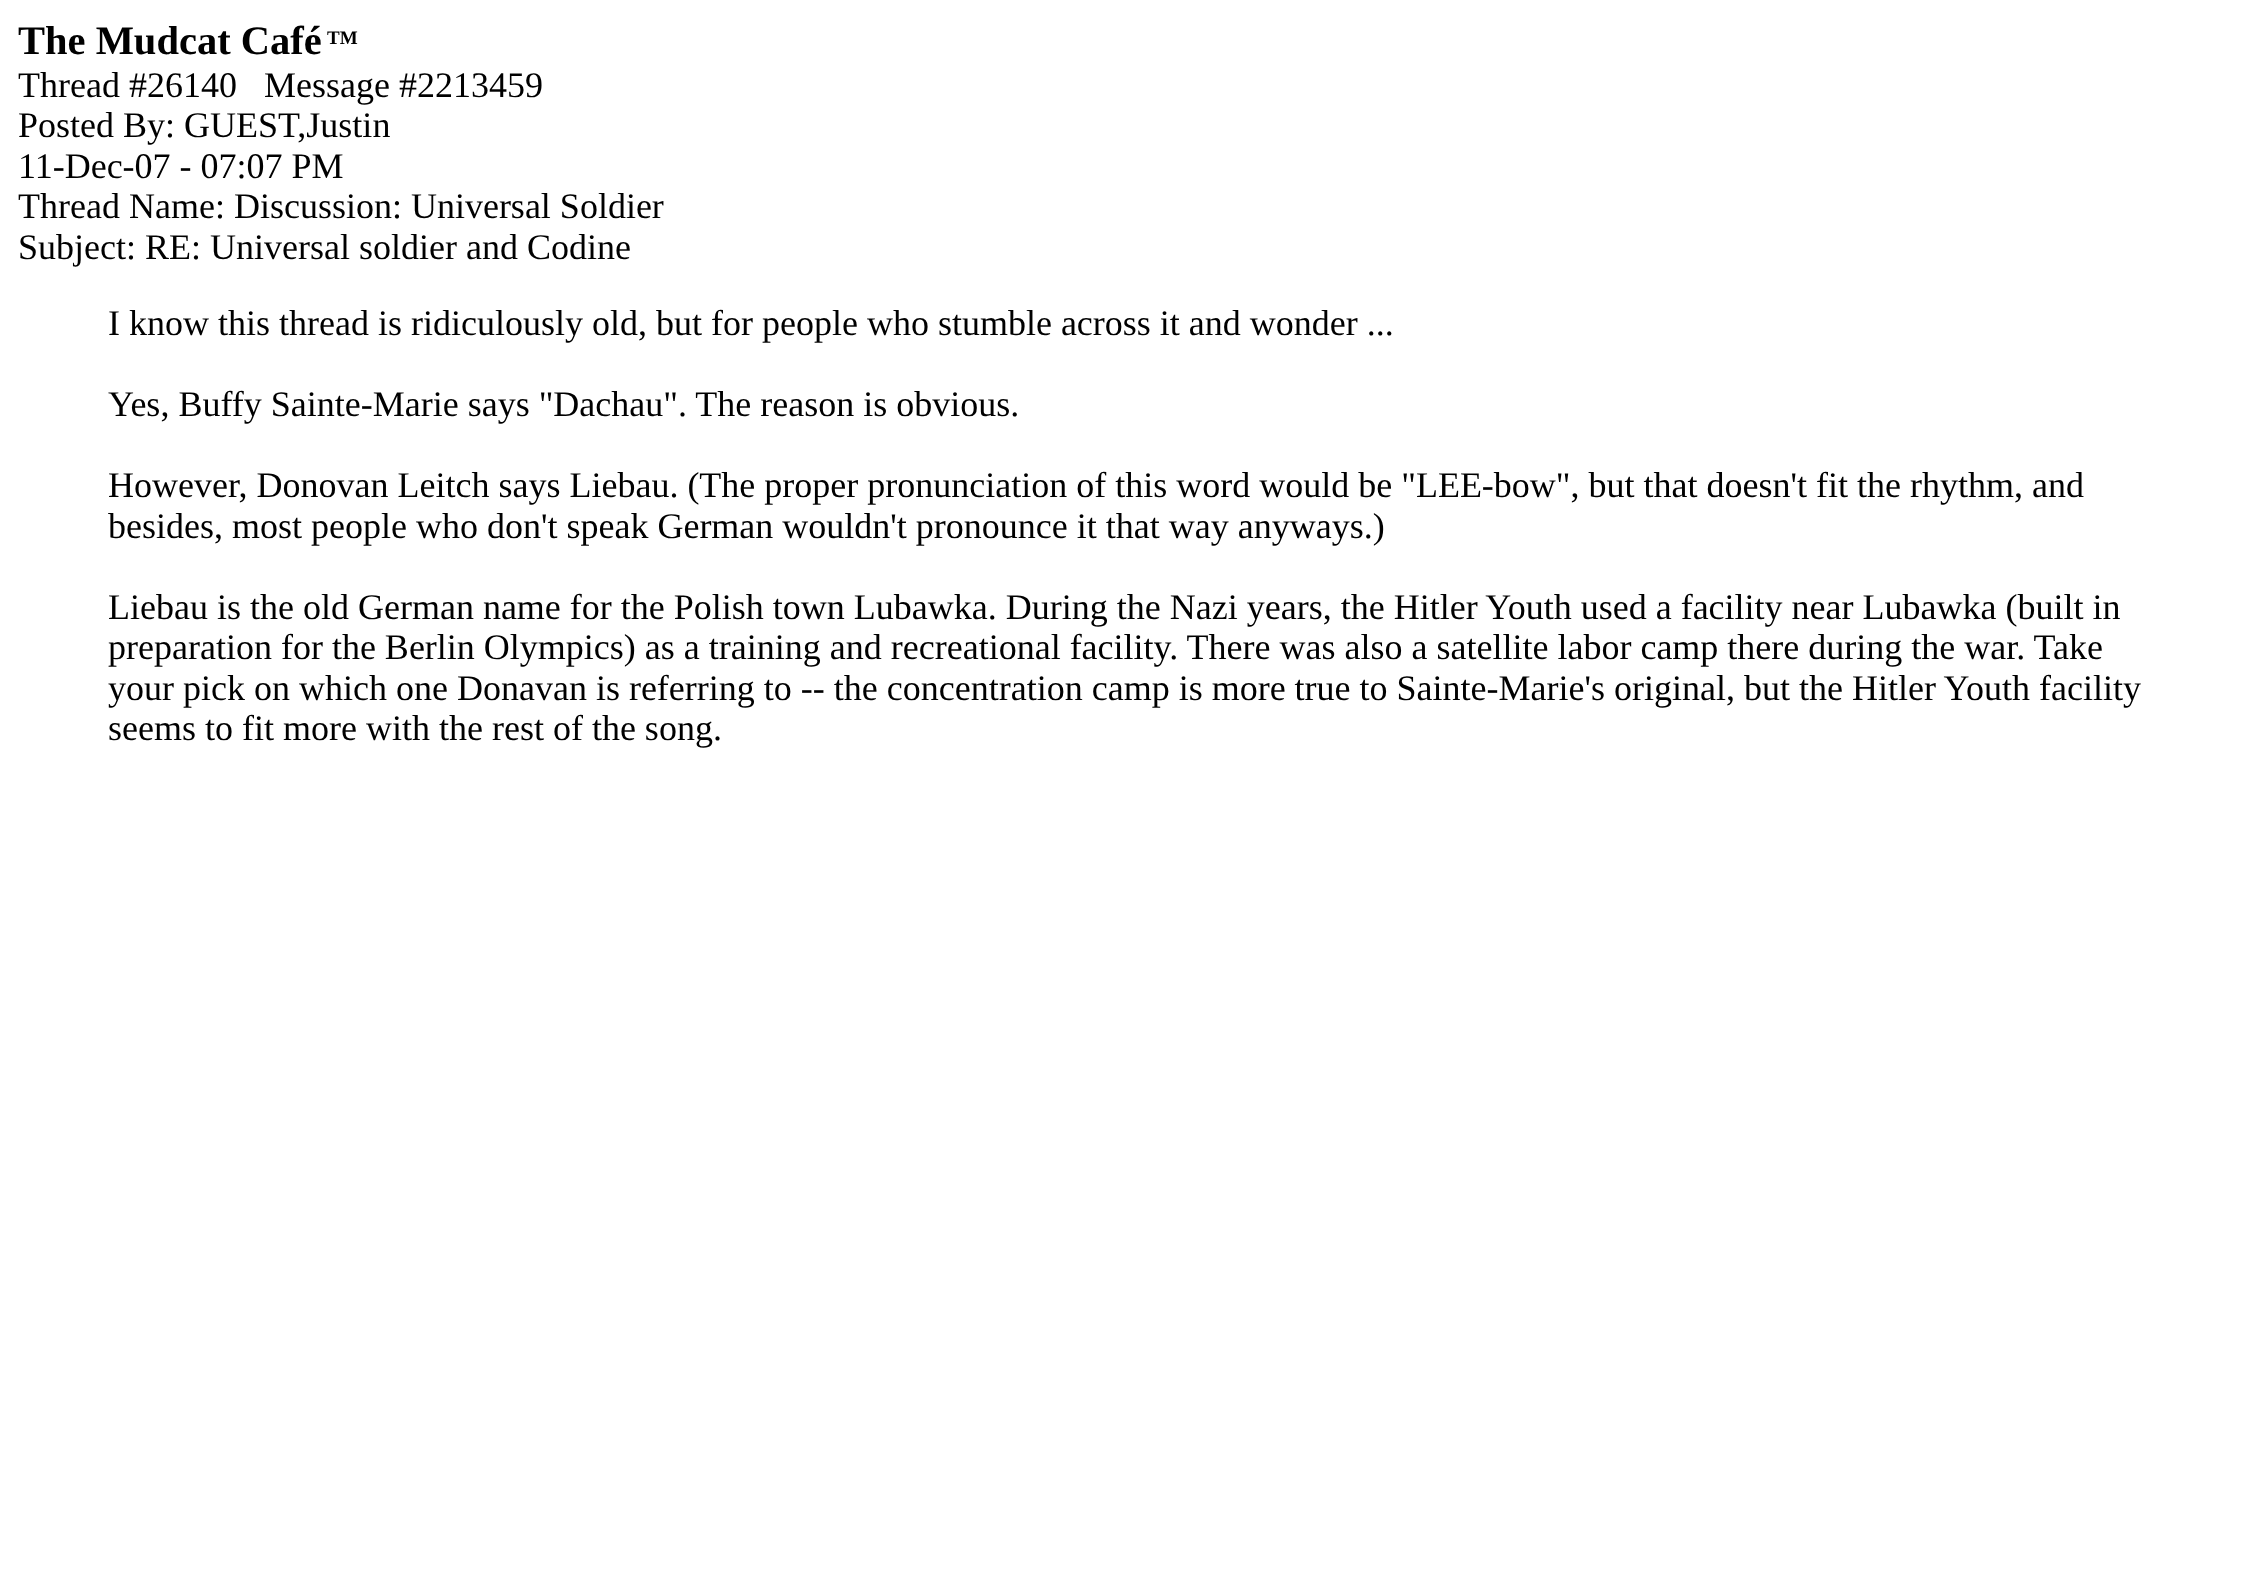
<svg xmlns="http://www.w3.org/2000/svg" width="2268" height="1569">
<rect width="100%" height="100%" fill="#fff"/>
<text x="18" y="54" style="font-family:Liberation Serif;font-size:40.5px;font-weight:bold;fill:#000">The Mudcat Café</text>
<text x="327" y="44" style="font-family:Liberation Serif;font-size:19px;font-weight:bold;fill:#000">TM</text>
<text x="18" y="97" style="font-family:Liberation Serif;font-size:36px;fill:#000" xml:space="preserve">Thread #26140   Message #2213459</text>
<text x="18" y="137" style="font-family:Liberation Serif;font-size:36px;fill:#000">Posted By: GUEST,Justin</text>
<text x="18" y="178" style="font-family:Liberation Serif;font-size:36px;fill:#000">11-Dec-07 - 07:07 PM</text>
<text x="18" y="218" style="font-family:Liberation Serif;font-size:36px;fill:#000">Thread Name: Discussion: Universal Soldier</text>
<text x="18" y="259" style="font-family:Liberation Serif;font-size:36px;fill:#000">Subject: RE: Universal soldier and Codine</text>
<text x="108" y="335" style="font-family:Liberation Serif;font-size:36px;fill:#000">I know this thread is ridiculously old, but for people who stumble across it and wonder ...</text>
<text x="108" y="416" style="font-family:Liberation Serif;font-size:36px;fill:#000">Yes, Buffy Sainte-Marie says "Dachau". The reason is obvious.</text>
<text x="108" y="497" style="font-family:Liberation Serif;font-size:36px;fill:#000">However, Donovan Leitch says Liebau. (The proper pronunciation of this word would be "LEE-bow", but that doesn't fit the rhythm, and</text>
<text x="108" y="538" style="font-family:Liberation Serif;font-size:36px;fill:#000">besides, most people who don't speak German wouldn't pronounce it that way anyways.)</text>
<text x="108" y="619" style="font-family:Liberation Serif;font-size:36px;fill:#000">Liebau is the old German name for the Polish town Lubawka. During the Nazi years, the Hitler Youth used a facility near Lubawka (built in</text>
<text x="108" y="659" style="font-family:Liberation Serif;font-size:36px;fill:#000">preparation for the Berlin Olympics) as a training and recreational facility. There was also a satellite labor camp there during the war. Take</text>
<text x="108" y="700" style="font-family:Liberation Serif;font-size:36px;fill:#000">your pick on which one Donavan is referring to -- the concentration camp is more true to Sainte-Marie's original, but the Hitler Youth facility</text>
<text x="108" y="740" style="font-family:Liberation Serif;font-size:36px;fill:#000">seems to fit more with the rest of the song.</text>
</svg>
